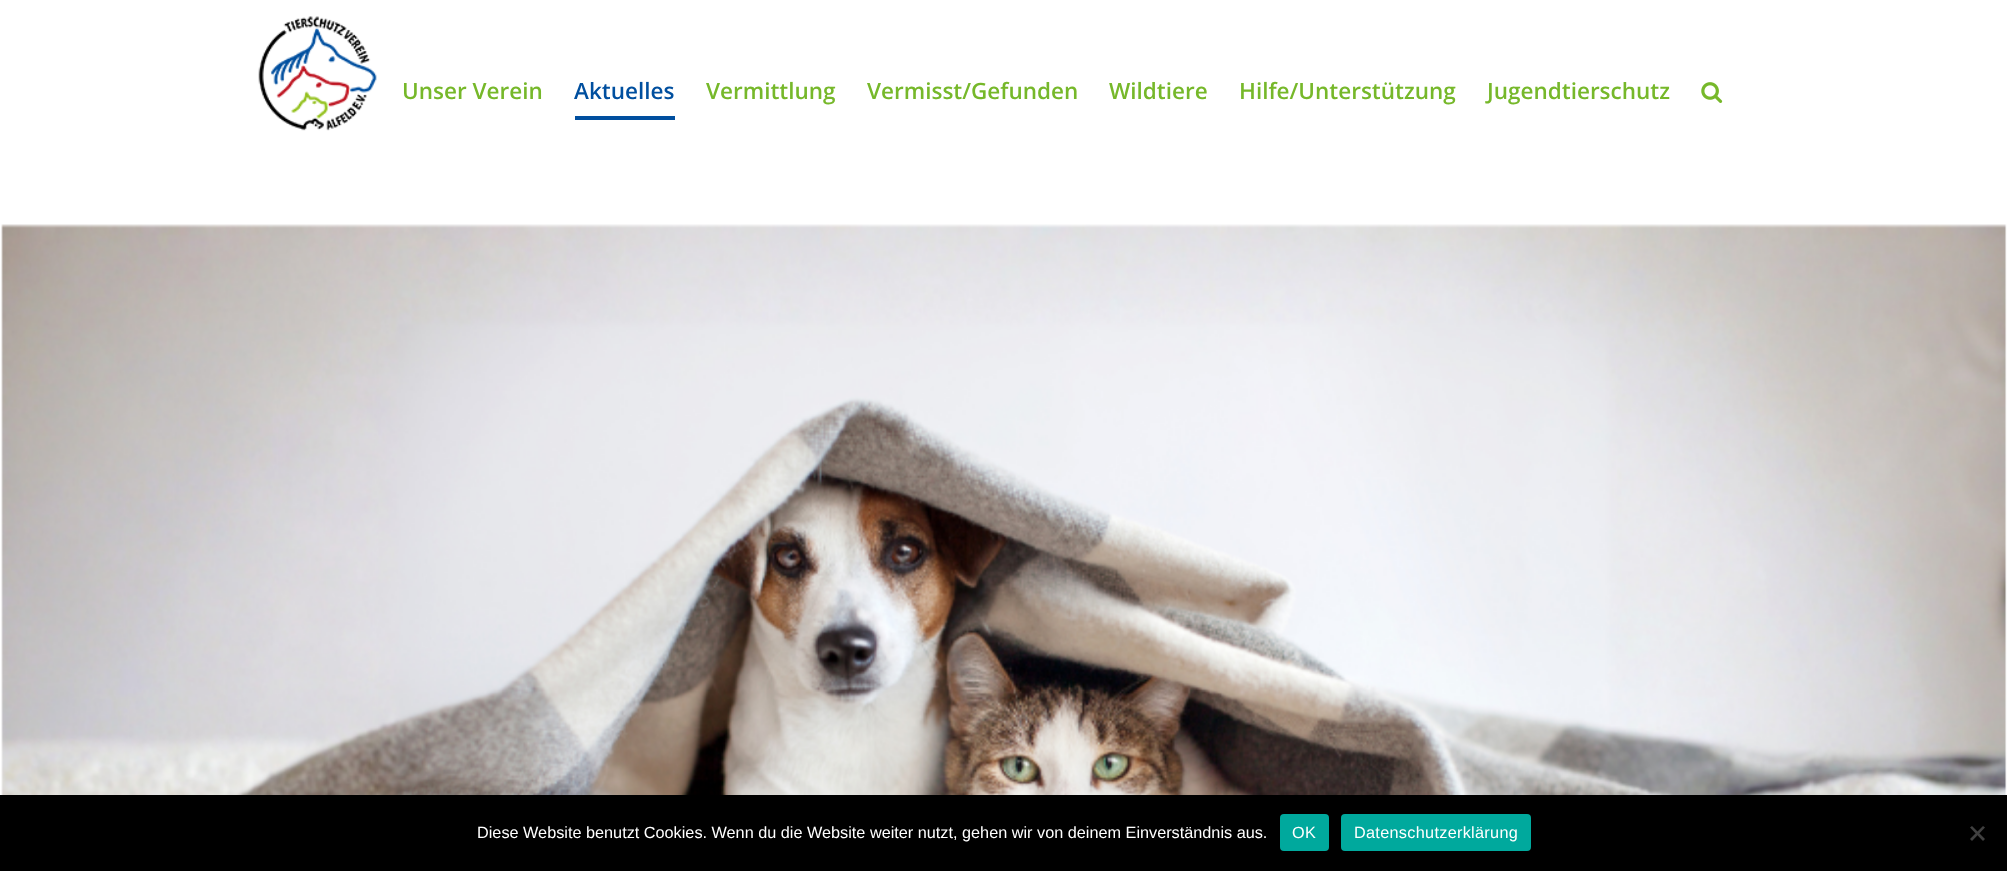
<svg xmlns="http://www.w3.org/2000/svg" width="2007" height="871">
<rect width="100%" height="100%" fill="#fff"/>
<image x="258" y="16" width="119" height="115" href="media/1.png"/>
<text x="402" y="99" style="font-family:Open Sans;font-size:22.5px;font-weight:600;fill:#76b82a">Unser Verein</text>
<text x="574" y="99" style="font-family:Open Sans;font-size:22.5px;font-weight:600;fill:#004f9f">Aktuelles</text>
<rect x="575" y="116" width="100" height="4" fill="#004f9f"/>
<text x="706" y="99" style="font-family:Open Sans;font-size:22.5px;font-weight:600;fill:#76b82a">Vermittlung</text>
<text x="867" y="99" style="font-family:Open Sans;font-size:22.5px;font-weight:600;fill:#76b82a">Vermisst/Gefunden</text>
<text x="1109" y="99" style="font-family:Open Sans;font-size:22.5px;font-weight:600;fill:#76b82a">Wildtiere</text>
<text x="1239" y="99" style="font-family:Open Sans;font-size:22.5px;font-weight:600;fill:#76b82a">Hilfe/Unterstützung</text>
<text x="1487" y="99" style="font-family:Open Sans;font-size:22.5px;font-weight:600;fill:#76b82a">Jugendtierschutz</text>
<image x="1701" y="82" width="22" height="21" href="media/2.png"/>
<image x="1" y="224" width="2006" height="571" href="media/3.png"/>
<rect y="795" width="2007" height="76" fill="#000"/>
<text x="477" y="838" style="font-family:Liberation Sans;font-size:16.25px;fill:#fff">Diese Website benutzt Cookies. Wenn du die Website weiter nutzt, gehen wir von deinem Einverständnis aus.</text>
<rect x="1280" y="814" width="49" height="37" rx="4" fill="#00a99d"/>
<text x="1292" y="838" style="font-family:Liberation Sans;font-size:16.25px;letter-spacing:0.3px;fill:#fff">OK</text>
<rect x="1341" y="814" width="190" height="37" rx="4" fill="#00a99d"/>
<text x="1354" y="838" style="font-family:Liberation Sans;font-size:16.25px;letter-spacing:0.3px;fill:#fff">Datenschutzerklärung</text>
<path d="M1983 826l2 1.5l-13 13.5l-2-2z" fill="#404040"/>
<path d="M1970 827.5l2-1.5l13 13l-2 2z" fill="#404040"/>
</svg>
